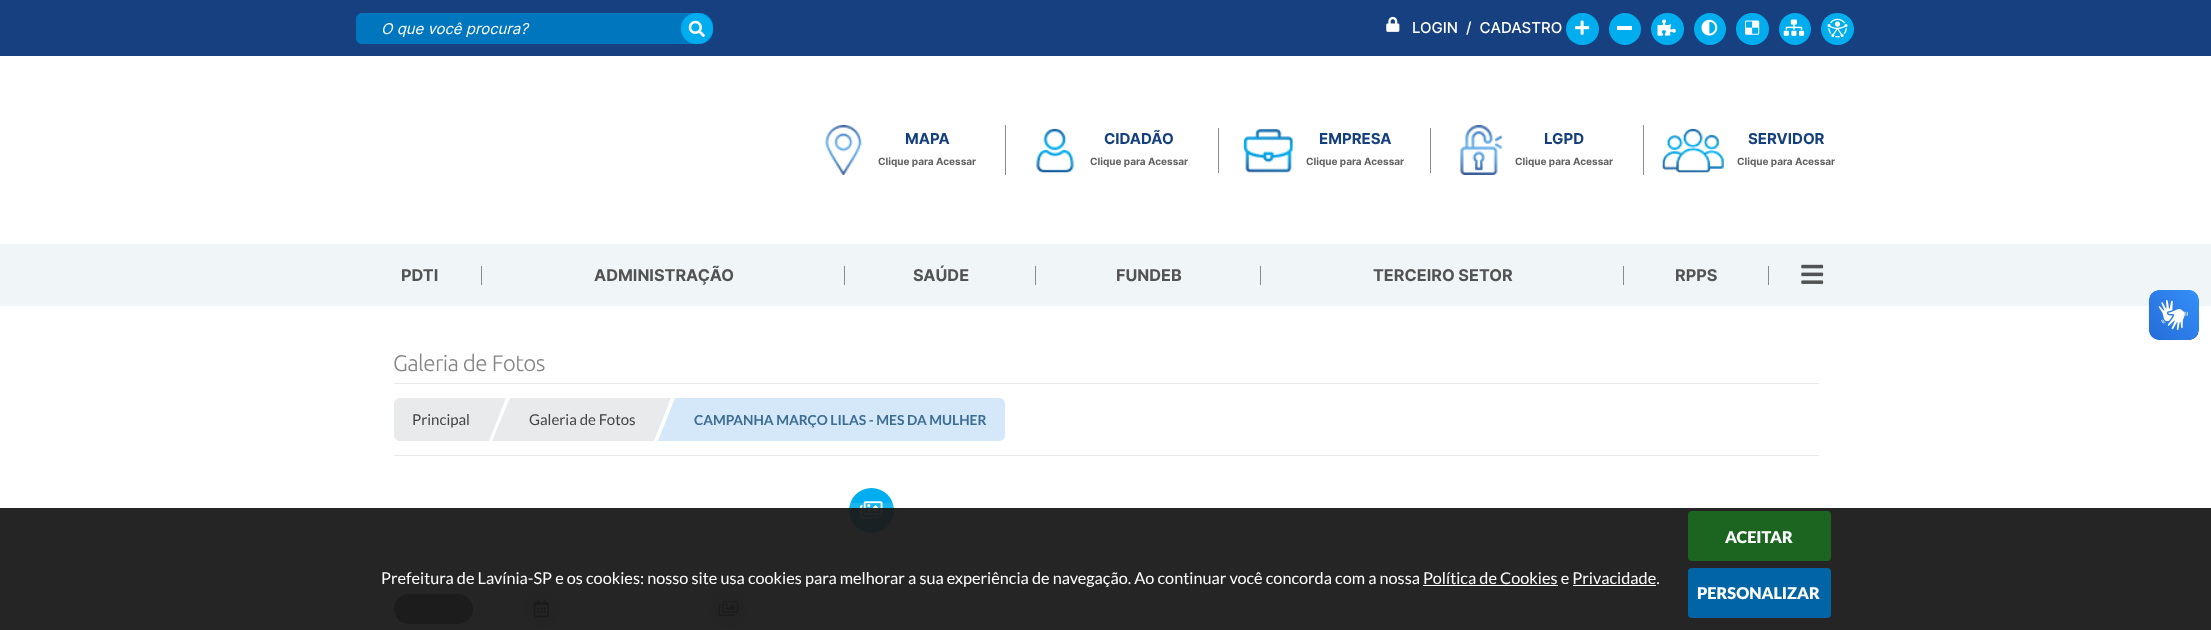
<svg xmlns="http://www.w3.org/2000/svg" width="2211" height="630">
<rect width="100%" height="100%" fill="#fff"/>
<rect width="2211" height="56" fill="#16407f"/>
<image x="1386" y="16" width="14" height="16" href="media/1.png"/>
<text x="1412" y="33" style="font-family:Inter;font-size:15px;font-weight:500;fill:#fff" xml:space="preserve">LOGIN  /  CADASTRO</text>
<rect y="244" width="2211" height="62" fill="#f0f5f8"/>
<path d="M362 13h338c7 0 13 6 13 13v5c0 7-6 13-13 13h-338c-3.5 0-6-2.5-6-6v-19c0-3.5 2.5-6 6-6z" fill="#0076bf"/>
<text x="381" y="34" style="font-family:Inter;font-size:15px;font-style:italic;fill:#fff">O que você procura?</text>
<rect x="681" y="13" width="32" height="31" rx="15.5" fill="#00aeef"/>
<image x="688" y="20" width="17" height="17" href="media/2.png"/>
<rect x="1566" y="13" width="33" height="32" rx="16" fill="#00aeef"/>
<image x="1575" y="20" width="15" height="15" href="media/3.png"/>
<circle cx="1625" cy="29" r="16" fill="#00aeef"/>
<rect x="1617" y="26" width="15" height="4" fill="#fff"/>
<rect x="1651" y="13" width="33" height="32" rx="16" fill="#00aeef"/>
<image x="1657" y="19" width="19" height="17" href="media/4.png"/>
<circle cx="1710" cy="29" r="16" fill="#00aeef"/>
<image x="1701" y="19" width="17" height="17" href="media/5.png"/>
<rect x="1736" y="13" width="33" height="32" rx="16" fill="#00aeef"/>
<image x="1745" y="20" width="15" height="15" href="media/6.png"/>
<circle cx="1795" cy="29" r="16" fill="#00aeef"/>
<image x="1783" y="19" width="22" height="17" href="media/7.png"/>
<rect x="1821" y="13" width="33" height="32" rx="16" fill="#00aeef"/>
<image x="1827" y="18" width="21" height="20" href="media/8.png"/>
<rect x="1005" y="125" width="1" height="50" fill="#8d8d8d"/>
<image x="825" y="125" width="37" height="50" href="media/9.png"/>
<text x="905" y="144" style="font-family:Inter;font-size:15px;font-weight:bold;fill:#15407f">MAPA</text>
<text x="878" y="165" style="font-family:Inter;font-size:10px;font-weight:bold;fill:#636363">Clique para Acessar</text>
<rect x="1218" y="128" width="1" height="45" fill="#8d8d8d"/>
<image x="1036" y="128" width="38" height="45" href="media/10.png"/>
<text x="1104" y="144" style="font-family:Inter;font-size:15px;font-weight:bold;fill:#15407f">CIDADÃO</text>
<text x="1090" y="165" style="font-family:Inter;font-size:10px;font-weight:bold;fill:#636363">Clique para Acessar</text>
<rect x="1430" y="128" width="1" height="45" fill="#8d8d8d"/>
<image x="1243" y="128" width="50" height="45" href="media/11.png"/>
<text x="1319" y="144" style="font-family:Inter;font-size:15px;font-weight:bold;fill:#15407f">EMPRESA</text>
<text x="1306" y="165" style="font-family:Inter;font-size:10px;font-weight:bold;fill:#636363">Clique para Acessar</text>
<rect x="1643" y="125" width="1" height="50" fill="#8d8d8d"/>
<image x="1459" y="125" width="44" height="50" href="media/12.png"/>
<text x="1544" y="144" style="font-family:Inter;font-size:15px;font-weight:bold;fill:#15407f">LGPD</text>
<text x="1515" y="165" style="font-family:Inter;font-size:10px;font-weight:bold;fill:#636363">Clique para Acessar</text>
<image x="1662" y="128" width="62" height="45" href="media/13.png"/>
<text x="1748" y="144" style="font-family:Inter;font-size:15px;font-weight:bold;fill:#15407f">SERVIDOR</text>
<text x="1737" y="165" style="font-family:Inter;font-size:10px;font-weight:bold;fill:#636363">Clique para Acessar</text>
<text x="401" y="281" style="font-family:Inter;font-size:16.25px;font-weight:bold;fill:#535353">PDTI</text>
<rect x="481" y="266" width="1" height="19" fill="#8c8c8c"/>
<text x="594" y="281" style="font-family:Inter;font-size:16.25px;font-weight:bold;fill:#535353">ADMINISTRAÇÃO</text>
<rect x="844" y="266" width="1" height="19" fill="#8c8c8c"/>
<text x="913" y="281" style="font-family:Inter;font-size:16.25px;font-weight:bold;fill:#535353">SAÚDE</text>
<rect x="1035" y="266" width="1" height="19" fill="#8c8c8c"/>
<text x="1116" y="281" style="font-family:Inter;font-size:16.25px;font-weight:bold;fill:#535353">FUNDEB</text>
<rect x="1260" y="266" width="1" height="19" fill="#8c8c8c"/>
<text x="1373" y="281" style="font-family:Inter;font-size:16.25px;font-weight:bold;fill:#535353">TERCEIRO SETOR</text>
<rect x="1623" y="266" width="1" height="19" fill="#8c8c8c"/>
<text x="1675" y="281" style="font-family:Inter;font-size:16.25px;font-weight:bold;fill:#535353">RPPS</text>
<rect x="1768" y="266" width="1" height="19" fill="#8c8c8c"/>
<image x="1801" y="264" width="23" height="20" href="media/14.png"/>
<image x="2148" y="290" width="51" height="50" href="media/15.png"/>
<image x="2149" y="290" width="50" height="50" href="media/16.png"/>
<circle cx="871.5" cy="510.5" r="22.5" fill="#00aeef"/>
<image x="860" y="501" width="23" height="18" href="media/17.png"/>
<rect x="394" y="564" width="1425" height="1" fill="#e8e9eb"/>
<rect x="394" y="594" width="79" height="30" rx="15" fill="#585a60"/>
<rect x="523" y="590" width="37" height="38" rx="18.5" fill="#e8e9eb"/>
<image x="533" y="599" width="17" height="19" href="media/18.png"/>
<circle cx="729" cy="609" r="19" fill="#e8e9eb"/>
<image x="718" y="600" width="21" height="17" href="media/19.png"/>
<rect x="465" y="503" width="1283" height="100" rx="8" fill="#ffffff1a"/>
<rect y="508" width="2211" height="122" fill="#191919f2"/>
<text x="381" y="584" style="font-family:Lato;font-size:16.25px;fill:#fff">Prefeitura de Lavínia-SP e os cookies: nosso site usa cookies para melhorar a sua experiência de navegação. Ao continuar você concorda com a nossa Política de Cookies e Privacidade.</text>
<rect x="1423" y="585" width="135" height="1" fill="#fff"/>
<rect x="1573" y="585" width="83" height="1" fill="#fff"/>
<rect x="1688" y="511" width="143" height="50" rx="4" fill="#1b6520"/>
<text x="1725" y="543" style="font-family:Lato;font-size:16.25px;font-weight:900;fill:#fff">ACEITAR</text>
<rect x="1688" y="568" width="143" height="50" rx="4" fill="#0164a4"/>
<text x="1697" y="599" style="font-family:Lato;font-size:16.25px;font-weight:900;fill:#fff">PERSONALIZAR</text>
<text x="393" y="371" style="font-family:Ubuntu;font-size:22.5px;font-weight:300;letter-spacing:-0.6px;fill:#868686">Galeria de Fotos</text>
<rect x="394" y="383" width="1425" height="1" fill="#e9e9e9"/>
<rect x="394" y="455" width="1425" height="1" fill="#e9e9e9"/>
<path d="M400 398h89v43h-89c-3.5 0-6-2.5-6-6v-31c0-3.5 2.5-6 6-6z" fill="#e9eaec"/>
<text x="412" y="425" style="font-family:Lato;font-size:15px;fill:#444">Principal</text>
<path d="M489 398h17l-17 43z" fill="#e9eaec"/>
<rect x="510" y="398" width="144" height="43" fill="#e9eaec"/>
<path d="M510 441h-18l18-43z" fill="#e9eaec"/>
<text x="529" y="425" style="font-family:Lato;font-size:15px;fill:#444">Galeria de Fotos</text>
<path d="M654 398h17l-17 43z" fill="#e9eaec"/>
<path d="M675 398h324c3.5 0 6 2.5 6 6v31c0 3.5-2.5 6-6 6h-324z" fill="#d4e8f9"/>
<path d="M675 441h-17l17-43z" fill="#d4e8f9"/>
<text x="694" y="425" style="font-family:Lato;font-size:13.75px;font-weight:bold;fill:#3d6d92">CAMPANHA MARÇO LILAS - MES DA MULHER</text>
</svg>
